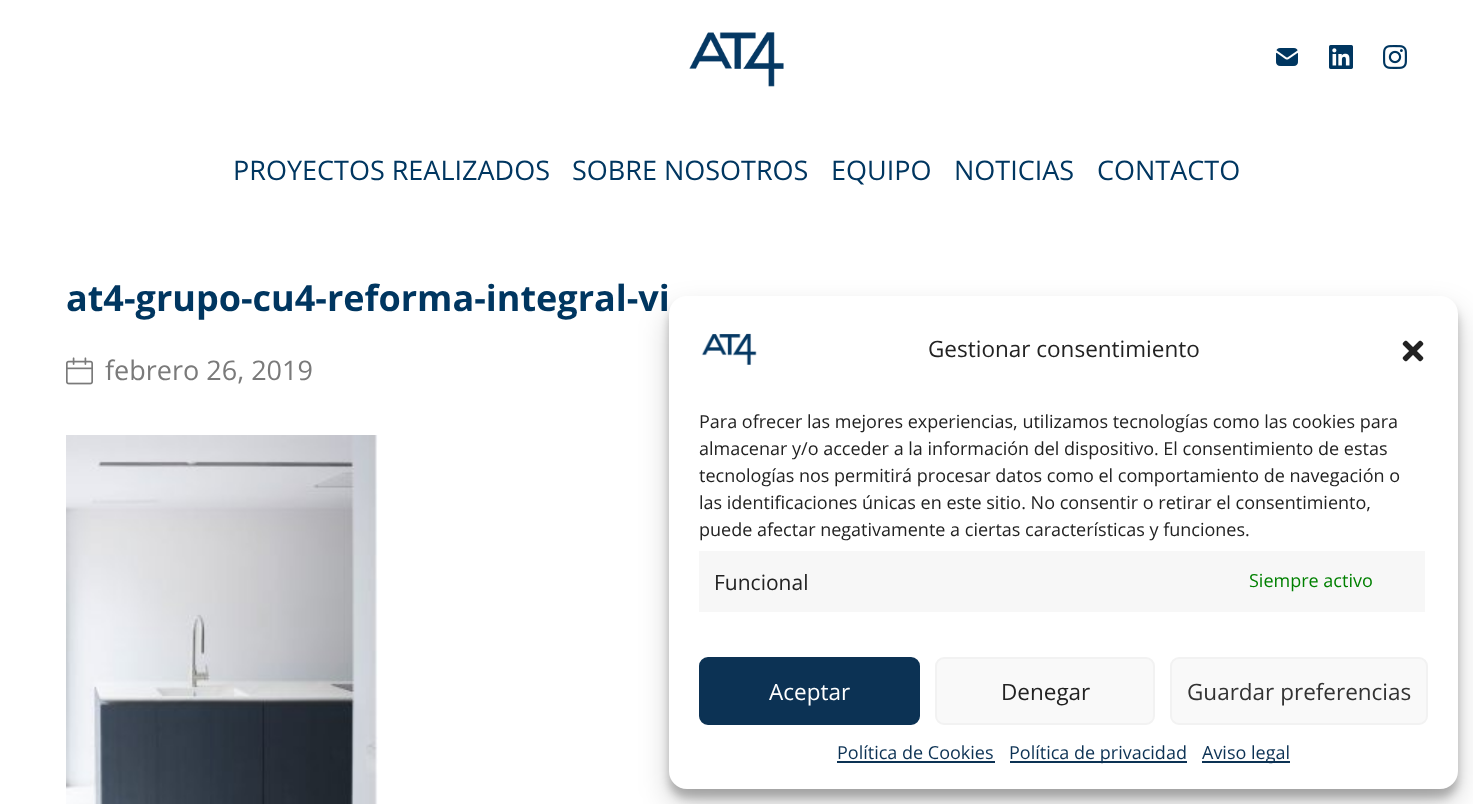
<svg xmlns="http://www.w3.org/2000/svg" width="1473" height="804">
<rect width="100%" height="100%" fill="#fff"/>
<image x="689" y="32" width="95" height="55" href="media/1.png"/>
<image x="1276" y="48" width="22" height="18" href="media/2.png"/>
<image x="1329" y="45" width="24" height="24" href="media/3.png"/>
<image x="1383" y="45" width="24" height="24" href="media/4.png"/>
<text x="233" y="180" style="font-family:Open Sans;font-size:27px;fill:#003660">PROYECTOS REALIZADOS</text>
<text x="572" y="180" style="font-family:Open Sans;font-size:27px;fill:#003660">SOBRE NOSOTROS</text>
<text x="831" y="180" style="font-family:Open Sans;font-size:27px;fill:#003660">EQUIPO</text>
<text x="954" y="180" style="font-family:Open Sans;font-size:27px;fill:#003660">NOTICIAS</text>
<text x="1097" y="180" style="font-family:Open Sans;font-size:27px;fill:#003660">CONTACTO</text>
<text x="66" y="311" style="font-family:Open Sans;font-size:36px;font-weight:bold;fill:#003660">at4-grupo-cu4-reforma-integral-vi</text>
<image x="66" y="357" width="27" height="28" href="media/5.png"/>
<text x="105" y="380" style="font-family:Open Sans;font-size:27px;fill:#7a7a7a">febrero 26, 2019</text>
<image x="66" y="435" width="312" height="369" href="media/6.png"/>
<rect x="669" y="305" width="789" height="493" rx="18" fill="#0000003b" filter="blur(4.5px)"/>
<rect x="669" y="311" width="789" height="493" rx="18" fill="#00000030" filter="blur(15px)"/>
<rect x="669" y="296" width="789" height="493" rx="18" fill="#fff"/>
<image x="701" y="333" width="56" height="32" href="media/7.png"/>
<text x="928" y="357" style="font-family:Open Sans;font-size:22.5px;fill:#222">Gestionar consentimiento</text>
<image x="1402" y="340" width="22" height="22" href="media/8.png"/>
<text x="699" y="428" style="font-family:Open Sans;font-size:18px;fill:#222">Para ofrecer las mejores experiencias, utilizamos tecnologías como las cookies para</text>
<text x="699" y="455" style="font-family:Open Sans;font-size:18px;fill:#222">almacenar y/o acceder a la información del dispositivo. El consentimiento de estas</text>
<text x="699" y="482" style="font-family:Open Sans;font-size:18px;fill:#222">tecnologías nos permitirá procesar datos como el comportamiento de navegación o</text>
<text x="699" y="509" style="font-family:Open Sans;font-size:18px;fill:#222">las identificaciones únicas en este sitio. No consentir o retirar el consentimiento,</text>
<text x="699" y="536" style="font-family:Open Sans;font-size:18px;fill:#222">puede afectar negativamente a ciertas características y funciones.</text>
<rect x="699" y="551" width="726" height="61" fill="#f7f7f7"/>
<text x="714" y="590" style="font-family:Open Sans;font-size:21px;fill:#222">Funcional</text>
<text x="1249" y="587" style="font-family:Open Sans;font-size:18px;fill:#008000">Siempre activo</text>
<rect x="700" y="658" width="219" height="66" rx="8" fill="#0c3254" stroke="#0c3254" stroke-width="2"/>
<text x="769" y="700" style="font-family:Open Sans;font-size:22.5px;fill:#fff">Aceptar</text>
<rect x="936" y="658" width="218" height="66" rx="8" fill="#f9f9f9" stroke="#f2f2f2" stroke-width="2"/>
<text x="1001" y="700" style="font-family:Open Sans;font-size:22.5px;fill:#222">Denegar</text>
<rect x="1171" y="658" width="256" height="66" rx="8" fill="#f9f9f9" stroke="#f2f2f2" stroke-width="2"/>
<text x="1187" y="700" style="font-family:Open Sans;font-size:22.5px;fill:#333">Guardar preferencias</text>
<text x="837" y="759" style="font-family:Open Sans;font-size:18px;fill:#0c3254">Política de Cookies</text>
<rect x="837" y="761" width="158" height="2" fill="#0c3254"/>
<rect x="1010" y="761" width="177" height="2" fill="#0c3254"/>
<text x="1009" y="759" style="font-family:Open Sans;font-size:18px;fill:#0c3254">Política de privacidad</text>
<rect x="1202" y="761" width="88" height="2" fill="#0c3254"/>
<text x="1202" y="759" style="font-family:Open Sans;font-size:18px;fill:#0c3254">Aviso legal</text>
</svg>
